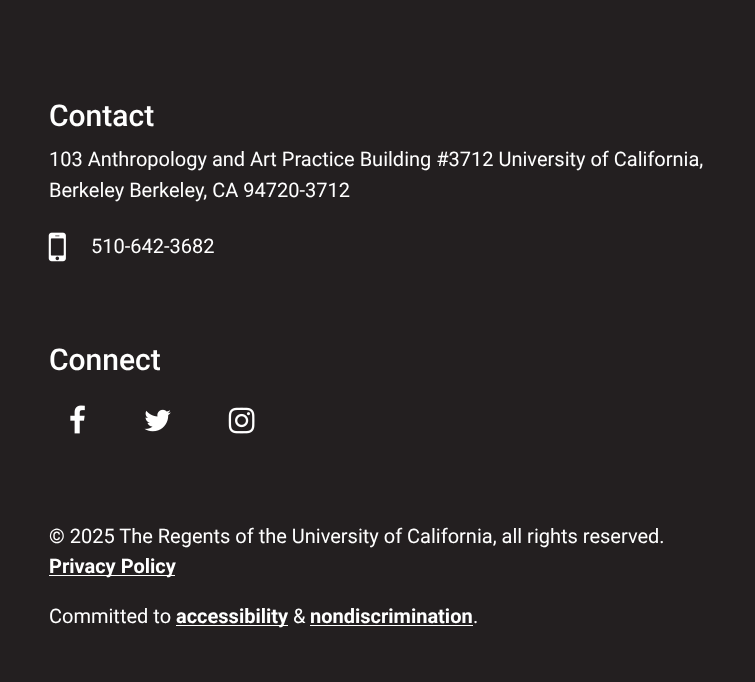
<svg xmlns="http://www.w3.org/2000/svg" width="755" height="682">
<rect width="100%" height="100%" fill="#231f20"/>
<text x="49" y="126" style="font-family:Roboto;font-size:30px;font-weight:500;fill:#fff">Contact</text>
<text x="49" y="166" style="font-family:Roboto;font-size:20px;fill:#fff">103 Anthropology and Art Practice Building #3712 University of California,</text>
<text x="49" y="197" style="font-family:Roboto;font-size:20px;fill:#fff">Berkeley Berkeley, CA 94720-3712</text>
<image x="48" y="232" width="18" height="30" href="media/1.png"/>
<text x="91" y="253" style="font-family:Roboto;font-size:20px;fill:#fff">510-642-3682</text>
<text x="49" y="370" style="font-family:Roboto;font-size:30px;font-weight:500;fill:#fff">Connect</text>
<image x="70" y="405" width="15" height="29" href="media/2.png"/>
<image x="144" y="409" width="27" height="23" href="media/3.png"/>
<image x="228" y="407" width="27" height="27" href="media/4.png"/>
<text x="49" y="543" style="font-family:Roboto;font-size:20px;fill:#fff">© 2025 The Regents of the University of California, all rights reserved.</text>
<rect x="49" y="575" width="126" height="1" fill="#fff"/>
<text x="49" y="573" style="font-family:Roboto;font-size:20px;font-weight:bold;fill:#fff">Privacy Policy</text>
<text x="49" y="623" style="font-family:Roboto;font-size:20px;fill:#fff">Committed to</text>
<rect x="176" y="625" width="112" height="1" fill="#fff"/>
<text x="176" y="623" style="font-family:Roboto;font-size:20px;font-weight:bold;fill:#fff">accessibility</text>
<text x="293" y="623" style="font-family:Roboto;font-size:20px;fill:#fff">&amp;</text>
<text x="310" y="623" style="font-family:Roboto;font-size:20px;font-weight:bold;fill:#fff">nondiscrimination</text>
<rect x="310" y="625" width="163" height="1" fill="#fff"/>
<text x="473" y="623" style="font-family:Roboto;font-size:20px;fill:#fff">.</text>
</svg>
